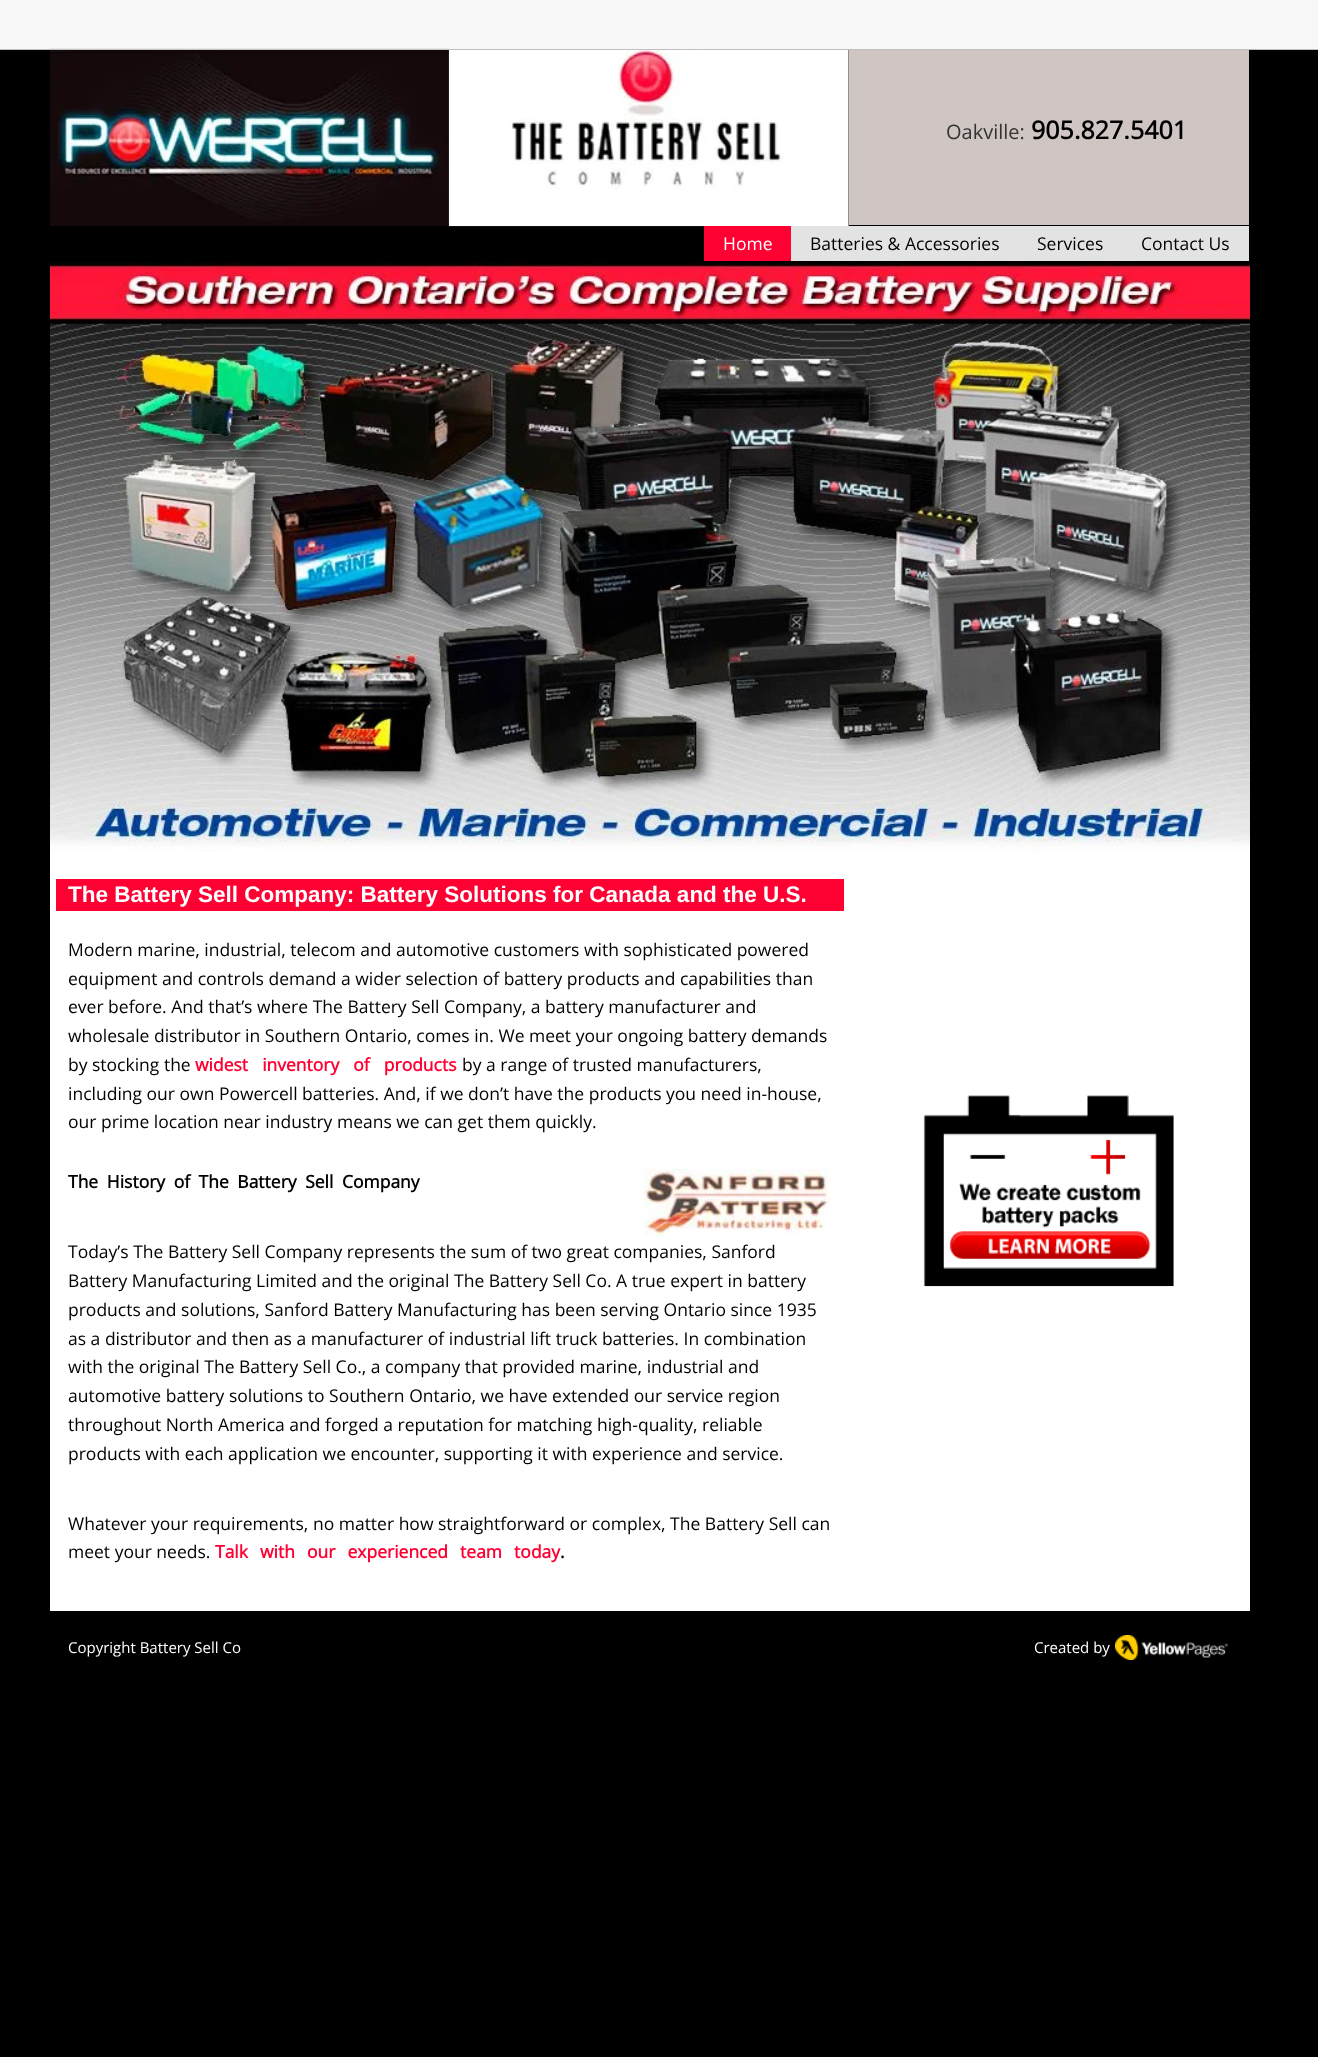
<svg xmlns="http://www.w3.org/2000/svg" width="1318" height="2057">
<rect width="100%" height="100%" fill="#000"/>
<rect width="1318" height="49" fill="#f8f8f8"/>
<image x="50" y="48" width="400" height="178" href="media/1.png"/>
<rect y="49" width="1318" height="1" fill="#bfbfbf"/>
<image x="448" y="50" width="401" height="177" href="media/2.png"/>
<rect x="849" y="50" width="400" height="175" fill="#cfc6c3"/>
<text x="946" y="139" style="font-family:Open Sans;font-size:20px;fill:#333">Oakville:</text>
<text x="1031" y="139" style="font-family:Open Sans;font-size:25px;font-weight:bold;fill:#000">905.827.5401</text>
<rect x="704" y="226" width="87" height="35" fill="#f03"/>
<text x="723" y="250" style="font-family:Open Sans;font-size:17.5px;fill:#fff">Home</text>
<rect x="791" y="226" width="458" height="35" fill="#e3e3e3"/>
<text x="810" y="250" style="font-family:Open Sans;font-size:17.5px;fill:#000">Batteries &amp; Accessories</text>
<text x="1037" y="250" style="font-family:Open Sans;font-size:17.5px;fill:#000">Services</text>
<text x="1141" y="250" style="font-family:Open Sans;font-size:17.5px;fill:#000">Contact Us</text>
<image x="50" y="261" width="1200" height="599" href="media/3.png"/>
<rect x="50" y="860" width="1200" height="751" fill="#fff"/>
<rect x="56" y="879" width="788" height="32" fill="#f03"/>
<text x="68" y="902" style="font-family:Liberation Sans;font-size:22.5px;font-weight:bold;fill:#fff">The Battery Sell Company: Battery Solutions for Canada and the U.S.</text>
<text x="68" y="956" style="font-family:Open Sans;font-size:17.5px;fill:#000">Modern marine, industrial, telecom and automotive customers with sophisticated powered</text>
<text x="68" y="985" style="font-family:Open Sans;font-size:17.5px;fill:#000">equipment and controls demand a wider selection of battery products and capabilities than</text>
<text x="68" y="1013" style="font-family:Open Sans;font-size:17.5px;fill:#000">ever before. And that’s where The Battery Sell Company, a battery manufacturer and</text>
<text x="68" y="1042" style="font-family:Open Sans;font-size:17.5px;fill:#000">wholesale distributor in Southern Ontario, comes in. We meet your ongoing battery demands</text>
<text x="68" y="1071" style="font-family:Open Sans;font-size:17.5px;fill:#000">by stocking the</text>
<text x="195" y="1071" word-spacing="9.5" style="font-family:Open Sans;font-size:17.5px;font-weight:bold;fill:#f03">widest inventory of products</text>
<text x="462" y="1071" style="font-family:Open Sans;font-size:17.5px;fill:#000">by a range of trusted manufacturers,</text>
<text x="68" y="1100" style="font-family:Open Sans;font-size:17.5px;fill:#000">including our own Powercell batteries. And, if we don’t have the products you need in-house,</text>
<text x="68" y="1128" style="font-family:Open Sans;font-size:17.5px;fill:#000">our prime location near industry means we can get them quickly.</text>
<image x="644" y="1169" width="187" height="67" href="media/4.png"/>
<text x="68" y="1188" word-spacing="4" style="font-family:Open Sans;font-size:17.5px;font-weight:bold;fill:#000">The History of The Battery Sell Company</text>
<text x="68" y="1258" style="font-family:Open Sans;font-size:17.5px;fill:#000">Today’s The Battery Sell Company represents the sum of two great companies, Sanford</text>
<text x="68" y="1287" style="font-family:Open Sans;font-size:17.5px;fill:#000">Battery Manufacturing Limited and the original The Battery Sell Co. A true expert in battery</text>
<text x="68" y="1316" style="font-family:Open Sans;font-size:17.5px;fill:#000">products and solutions, Sanford Battery Manufacturing has been serving Ontario since 1935</text>
<text x="68" y="1345" style="font-family:Open Sans;font-size:17.5px;fill:#000">as a distributor and then as a manufacturer of industrial lift truck batteries. In combination</text>
<text x="68" y="1373" style="font-family:Open Sans;font-size:17.5px;fill:#000">with the original The Battery Sell Co., a company that provided marine, industrial and</text>
<text x="68" y="1402" style="font-family:Open Sans;font-size:17.5px;fill:#000">automotive battery solutions to Southern Ontario, we have extended our service region</text>
<text x="68" y="1431" style="font-family:Open Sans;font-size:17.5px;fill:#000">throughout North America and forged a reputation for matching high-quality, reliable</text>
<text x="68" y="1460" style="font-family:Open Sans;font-size:17.5px;fill:#000">products with each application we encounter, supporting it with experience and service.</text>
<text x="68" y="1530" style="font-family:Open Sans;font-size:17.5px;fill:#000">Whatever your requirements, no matter how straightforward or complex, The Battery Sell can</text>
<text x="68" y="1558" style="font-family:Open Sans;font-size:17.5px;fill:#000">meet your needs.</text>
<text x="215" y="1558" word-spacing="7.5" style="font-family:Open Sans;font-size:17.5px;font-weight:bold;fill:#f03">Talk with our experienced team today</text>
<text x="560" y="1558" style="font-family:Open Sans;font-size:17.5px;font-weight:bold;fill:#000">.</text>
<image x="923" y="1095" width="251" height="192" href="media/5.png"/>
<text x="68" y="1653" style="font-family:Open Sans;font-size:15px;fill:#fff">Copyright Battery Sell Co</text>
<text x="1034" y="1653" style="font-family:Open Sans;font-size:15px;fill:#fff">Created by</text>
<image x="1115" y="1635" width="113" height="25" href="media/6.png"/>
</svg>
